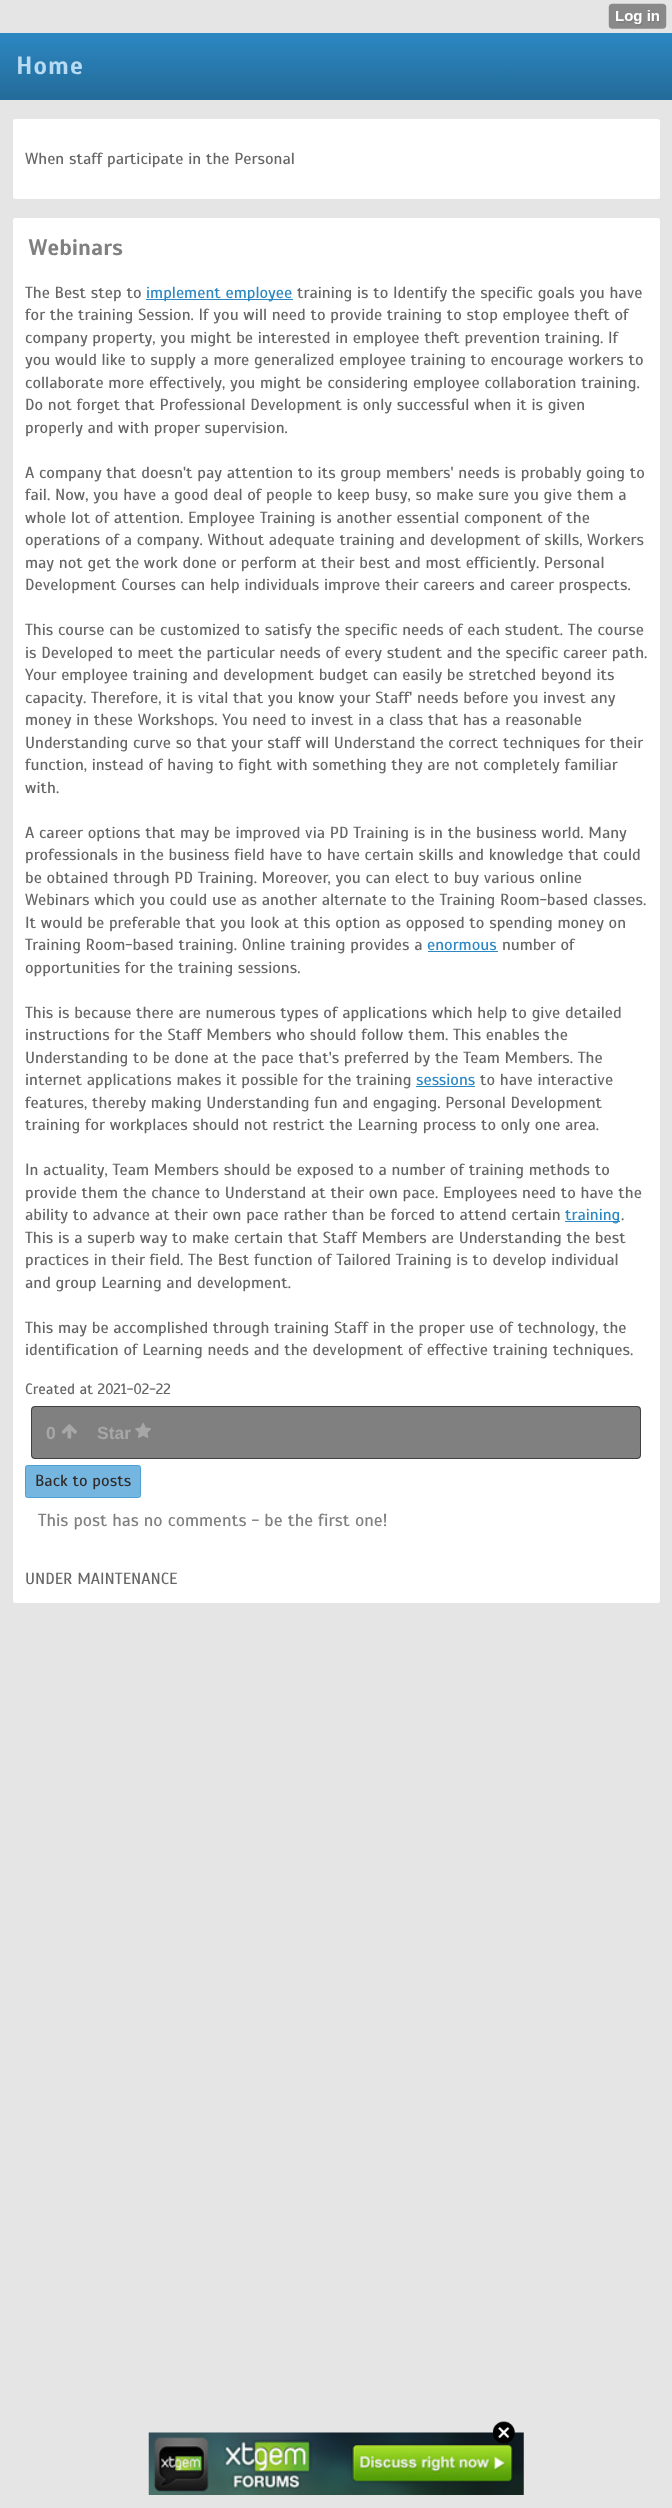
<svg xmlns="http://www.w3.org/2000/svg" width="672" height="2508">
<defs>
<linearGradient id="g1" gradientUnits="userSpaceOnUse" x1="336" y1="32" x2="336" y2="100"><stop offset="0" stop-color="#2c88c3"/><stop offset="1" stop-color="#236b99"/></linearGradient>
</defs>
<rect width="100%" height="100%" fill="#e5e5e5"/>
<image x="608" y="3" width="59" height="26" href="media/1.png"/>
<rect y="33" width="672" height="67" fill="url(#g1)"/>
<text x="16" y="74" style="font-family:Scada;font-size:25px;font-weight:bold;letter-spacing:1px;fill:#b7dbf2">Home</text>
<rect x="13" y="119" width="647" height="80" rx="2.5" fill="#fff"/>
<text x="25" y="164" style="font-family:Scada;font-size:16.25px;fill:#666">When staff participate in the Personal</text>
<rect x="13" y="218" width="647" height="1385" rx="2.5" fill="#fff"/>
<text x="28" y="255" style="font-family:Scada;font-size:22.5px;font-weight:bold;fill:#808080">Webinars</text>
<text x="25" y="298" style="font-family:Scada;font-size:16.25px;fill:#666">The Best step to</text>
<rect x="146" y="299" width="147" height="1" fill="#2c88c3"/>
<text x="146" y="298" style="font-family:Scada;font-size:16.25px;fill:#2c88c3">implement employee</text>
<text x="297" y="298" style="font-family:Scada;font-size:16.25px;fill:#666">training is to Identify the specific goals you have</text>
<text x="25" y="320" style="font-family:Scada;font-size:16.25px;fill:#666">for the training Session. If you will need to provide training to stop employee theft of</text>
<text x="25" y="343" style="font-family:Scada;font-size:16.25px;fill:#666">company property, you might be interested in employee theft prevention training. If</text>
<text x="25" y="365" style="font-family:Scada;font-size:16.25px;fill:#666">you would like to supply a more generalized employee training to encourage workers to</text>
<text x="25" y="388" style="font-family:Scada;font-size:16.25px;fill:#666">collaborate more effectively, you might be considering employee collaboration training.</text>
<text x="25" y="410" style="font-family:Scada;font-size:16.25px;fill:#666">Do not forget that Professional Development is only successful when it is given</text>
<text x="25" y="433" style="font-family:Scada;font-size:16.25px;fill:#666">properly and with proper supervision.</text>
<text x="25" y="478" style="font-family:Scada;font-size:16.25px;fill:#666">A company that doesn't pay attention to its group members' needs is probably going to</text>
<text x="25" y="500" style="font-family:Scada;font-size:16.25px;fill:#666">fail. Now, you have a good deal of people to keep busy, so make sure you give them a</text>
<text x="25" y="523" style="font-family:Scada;font-size:16.25px;fill:#666">whole lot of attention. Employee Training is another essential component of the</text>
<text x="25" y="545" style="font-family:Scada;font-size:16.25px;fill:#666">operations of a company. Without adequate training and development of skills, Workers</text>
<text x="25" y="568" style="font-family:Scada;font-size:16.25px;fill:#666">may not get the work done or perform at their best and most efficiently. Personal</text>
<text x="25" y="590" style="font-family:Scada;font-size:16.25px;fill:#666">Development Courses can help individuals improve their careers and career prospects.</text>
<text x="25" y="635" style="font-family:Scada;font-size:16.25px;fill:#666">This course can be customized to satisfy the specific needs of each student. The course</text>
<text x="25" y="658" style="font-family:Scada;font-size:16.25px;fill:#666">is Developed to meet the particular needs of every student and the specific career path.</text>
<text x="25" y="680" style="font-family:Scada;font-size:16.25px;fill:#666">Your employee training and development budget can easily be stretched beyond its</text>
<text x="25" y="703" style="font-family:Scada;font-size:16.25px;fill:#666">capacity. Therefore, it is vital that you know your Staff' needs before you invest any</text>
<text x="25" y="725" style="font-family:Scada;font-size:16.25px;fill:#666">money in these Workshops. You need to invest in a class that has a reasonable</text>
<text x="25" y="748" style="font-family:Scada;font-size:16.25px;fill:#666">Understanding curve so that your staff will Understand the correct techniques for their</text>
<text x="25" y="770" style="font-family:Scada;font-size:16.25px;fill:#666">function, instead of having to fight with something they are not completely familiar</text>
<text x="25" y="793" style="font-family:Scada;font-size:16.25px;fill:#666">with.</text>
<text x="25" y="838" style="font-family:Scada;font-size:16.25px;fill:#666">A career options that may be improved via PD Training is in the business world. Many</text>
<text x="25" y="860" style="font-family:Scada;font-size:16.25px;fill:#666">professionals in the business field have to have certain skills and knowledge that could</text>
<text x="25" y="883" style="font-family:Scada;font-size:16.25px;fill:#666">be obtained through PD Training. Moreover, you can elect to buy various online</text>
<text x="25" y="905" style="font-family:Scada;font-size:16.25px;fill:#666">Webinars which you could use as another alternate to the Training Room-based classes.</text>
<text x="25" y="928" style="font-family:Scada;font-size:16.25px;fill:#666">It would be preferable that you look at this option as opposed to spending money on</text>
<text x="25" y="950" style="font-family:Scada;font-size:16.25px;fill:#666">Training Room-based training. Online training provides a</text>
<text x="427" y="950" style="font-family:Scada;font-size:16.25px;fill:#2c88c3">enormous</text>
<rect x="428" y="951" width="70" height="1" fill="#2c88c3"/>
<text x="502" y="950" style="font-family:Scada;font-size:16.25px;fill:#666">number of</text>
<text x="25" y="973" style="font-family:Scada;font-size:16.25px;fill:#666">opportunities for the training sessions.</text>
<text x="25" y="1018" style="font-family:Scada;font-size:16.25px;fill:#666">This is because there are numerous types of applications which help to give detailed</text>
<text x="25" y="1040" style="font-family:Scada;font-size:16.25px;fill:#666">instructions for the Staff Members who should follow them. This enables the</text>
<text x="25" y="1063" style="font-family:Scada;font-size:16.25px;fill:#666">Understanding to be done at the pace that's preferred by the Team Members. The</text>
<text x="25" y="1085" style="font-family:Scada;font-size:16.25px;fill:#666">internet applications makes it possible for the training</text>
<text x="416" y="1085" style="font-family:Scada;font-size:16.25px;fill:#2c88c3">sessions</text>
<rect x="416" y="1086" width="59" height="1" fill="#2c88c3"/>
<text x="480" y="1085" style="font-family:Scada;font-size:16.25px;fill:#666">to have interactive</text>
<text x="25" y="1108" style="font-family:Scada;font-size:16.25px;fill:#666">features, thereby making Understanding fun and engaging. Personal Development</text>
<text x="25" y="1130" style="font-family:Scada;font-size:16.25px;fill:#666">training for workplaces should not restrict the Learning process to only one area.</text>
<text x="25" y="1175" style="font-family:Scada;font-size:16.25px;fill:#666">In actuality, Team Members should be exposed to a number of training methods to</text>
<text x="25" y="1198" style="font-family:Scada;font-size:16.25px;fill:#666">provide them the chance to Understand at their own pace. Employees need to have the</text>
<text x="25" y="1220" style="font-family:Scada;font-size:16.25px;fill:#666">ability to advance at their own pace rather than be forced to attend certain</text>
<rect x="565" y="1221" width="55" height="1" fill="#2c88c3"/>
<text x="565" y="1220" style="font-family:Scada;font-size:16.25px;fill:#2c88c3">training</text>
<text x="621" y="1220" style="font-family:Scada;font-size:16.25px;fill:#666">.</text>
<text x="25" y="1243" style="font-family:Scada;font-size:16.25px;fill:#666">This is a superb way to make certain that Staff Members are Understanding the best</text>
<text x="25" y="1265" style="font-family:Scada;font-size:16.25px;fill:#666">practices in their field. The Best function of Tailored Training is to develop individual</text>
<text x="25" y="1288" style="font-family:Scada;font-size:16.25px;fill:#666">and group Learning and development.</text>
<text x="25" y="1333" style="font-family:Scada;font-size:16.25px;fill:#666">This may be accomplished through training Staff in the proper use of technology, the</text>
<text x="25" y="1355" style="font-family:Scada;font-size:16.25px;fill:#666">identification of Learning needs and the development of effective training techniques.</text>
<text x="25" y="1394" style="font-family:Scada;font-size:15px;fill:#666">Created at 2021-02-22</text>
<rect x="31" y="1406" width="610" height="53" rx="4" fill="#808080"/>
<rect x="31.5" y="1406.5" width="609" height="52" rx="3.5" fill="none" stroke="#00000080"/>
<text x="46" y="1439" style="font-family:Liberation Sans;font-size:17.5px;font-weight:bold;fill:#a7a7a7">0</text>
<image x="61" y="1424" width="16" height="15" href="media/2.png"/>
<text x="97" y="1439" style="font-family:Liberation Sans;font-size:17.5px;font-weight:bold;fill:#a7a7a7">Star</text>
<image x="135" y="1422" width="16" height="16" href="media/3.png"/>
<rect x="25.5" y="1465.5" width="115" height="32" rx="2" fill="#75b6e0" stroke="#4ca0d6"/>
<text x="35" y="1486" style="font-family:Scada;font-size:16.25px;fill:#302b28">Back to posts</text>
<text x="38" y="1526" style="font-family:Scada;font-size:17.5px;fill:#808080">This post has no comments - be the first one!</text>
<text x="25" y="1584" style="font-family:Scada;font-size:16.25px;fill:#666">UNDER MAINTENANCE</text>
<image x="148" y="2432" width="376" height="63" href="media/5.png"/>
<image x="492" y="2421" width="23" height="23" href="media/4.png"/>
</svg>
